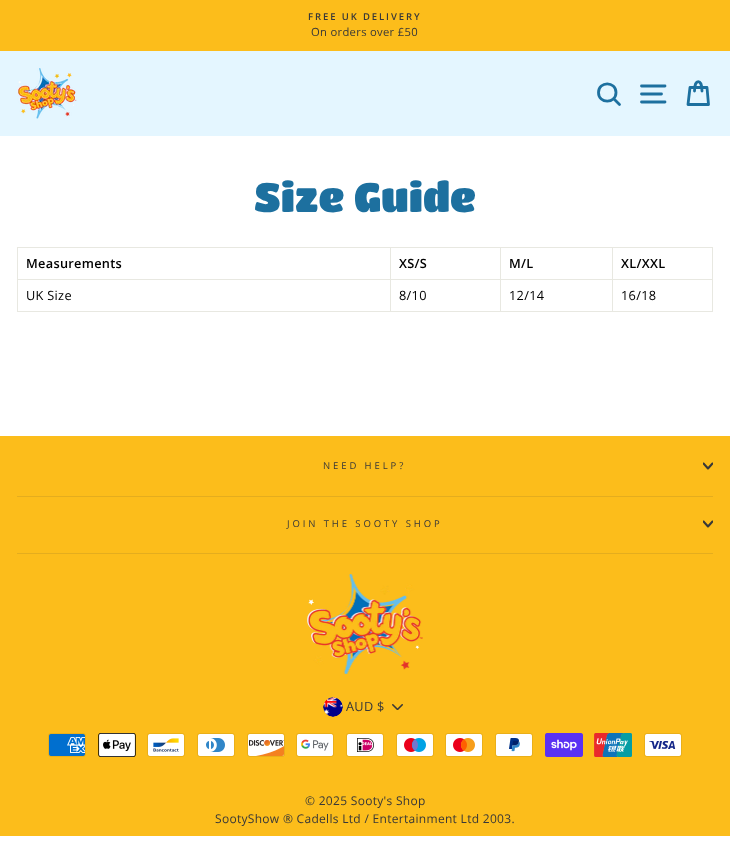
<svg xmlns="http://www.w3.org/2000/svg" width="730" height="864">
<defs>
<clipPath id="clip1"><rect x="703" y="461" width="10" height="10"/></clipPath>
<clipPath id="clip2"><rect x="703" y="519" width="10" height="10"/></clipPath>
</defs>
<rect width="100%" height="100%" fill="#fff"/>
<rect width="730" height="51" fill="#fcbd1b"/>
<text x="308" y="20" style="font-family:Open Sans;font-size:9.5px;font-weight:600;letter-spacing:1.9px;fill:#383838">FREE UK DELIVERY</text>
<text x="311" y="36" style="font-family:Open Sans;font-size:11.25px;letter-spacing:0.3px;fill:#383838">On orders over £50</text>
<rect y="51" width="730" height="85" fill="#e4f6ff"/>
<image x="17" y="68" width="60" height="51" href="media/1.png"/>
<path d="M616 92.5c0 11.5-17.5 11.5-17.5 0c0-11.5 17.5-11.5 17.5 0zm3.5 12l-6-6" fill="none" stroke="#1d709f" stroke-width="2.8" stroke-linecap="round" stroke-linejoin="round"/>
<path d="M641.5 86h23.5m-23.5 8h20m-20 8h23.5" fill="none" stroke="#1d709f" stroke-width="2.8" stroke-linecap="round" stroke-linejoin="round"/>
<path d="M694.5 91c0-12.5 7.5-12.5 7.5 0m-12-3.5h17l1.5 17h-20.5z" fill="none" stroke="#1d709f" stroke-width="2.8" stroke-linecap="round" stroke-linejoin="round"/>
<text x="254" y="212" style="font-family:Titan One;font-size:40.75px;fill:#1d709f">Size Guide</text>
<rect x="17" y="247" width="696" height="65" fill="#e8e8e1"/>
<rect x="18" y="248" width="372" height="31" fill="#fff"/>
<text x="26" y="268" style="font-family:Open Sans;font-size:12.75px;font-weight:600;letter-spacing:0.3px;fill:#000">Measurements</text>
<rect x="391" y="248" width="109" height="31" fill="#fff"/>
<text x="399" y="268" style="font-family:Open Sans;font-size:12.75px;font-weight:600;letter-spacing:0.3px;fill:#000">XS/S</text>
<rect x="501" y="248" width="111" height="31" fill="#fff"/>
<text x="509" y="268" style="font-family:Open Sans;font-size:12.75px;font-weight:600;letter-spacing:0.3px;fill:#000">M/L</text>
<rect x="613" y="248" width="99" height="31" fill="#fff"/>
<text x="621" y="268" style="font-family:Open Sans;font-size:12.75px;font-weight:600;letter-spacing:0.3px;fill:#000">XL/XXL</text>
<rect x="18" y="280" width="372" height="31" fill="#fff"/>
<text x="26" y="300" style="font-family:Open Sans;font-size:12.75px;letter-spacing:0.3px;fill:#000">UK Size</text>
<rect x="391" y="280" width="109" height="31" fill="#fff"/>
<text x="399" y="300" style="font-family:Open Sans;font-size:12.75px;letter-spacing:0.3px;fill:#000">8/10</text>
<rect x="501" y="280" width="111" height="31" fill="#fff"/>
<text x="509" y="300" style="font-family:Open Sans;font-size:12.75px;letter-spacing:0.3px;fill:#000">12/14</text>
<rect x="613" y="280" width="99" height="31" fill="#fff"/>
<text x="621" y="300" style="font-family:Open Sans;font-size:12.75px;letter-spacing:0.3px;fill:#000">16/18</text>
<rect y="436" width="730" height="400" fill="#fcbd1b"/>
<text x="323" y="469" style="font-family:Open Sans;font-size:9.5px;letter-spacing:2.9px;fill:#383838">NEED HELP?</text>
<g clip-path="url(#clip1)">
<path d="M703.5 463.5l4.5 5l4.5-5" fill="none" stroke="#383838" stroke-width="2.1" stroke-linecap="round" stroke-linejoin="round"/>
</g>
<rect x="17" y="496" width="696" height="1" fill="#e4ad1e"/>
<text x="287" y="527" style="font-family:Open Sans;font-size:9.5px;letter-spacing:2.9px;fill:#383838">JOIN THE SOOTY SHOP</text>
<g clip-path="url(#clip2)">
<path d="M703.5 521.5l4.5 5l4.5-5" fill="none" stroke="#383838" stroke-width="2.1" stroke-linecap="round" stroke-linejoin="round"/>
</g>
<rect x="17" y="553" width="696" height="1" fill="#e4ad1e"/>
<image x="307" y="574" width="116" height="100" href="media/2.png"/>
<image x="392" y="704" width="11" height="6" href="media/3.png"/>
<image x="323" y="697" width="20" height="20" href="media/4.png"/>
<text x="346" y="711" style="font-family:Open Sans;font-size:12.75px;letter-spacing:0.3px;fill:#383838">AUD $</text>
<image x="48" y="733" width="38" height="24" href="media/5.png"/>
<image x="98" y="733" width="38" height="24" href="media/6.png"/>
<image x="147" y="733" width="38" height="24" href="media/7.png"/>
<image x="197" y="733" width="38" height="24" href="media/8.png"/>
<image x="247" y="733" width="38" height="24" href="media/9.png"/>
<image x="296" y="733" width="38" height="24" href="media/10.png"/>
<image x="346" y="733" width="38" height="24" href="media/11.png"/>
<image x="396" y="733" width="38" height="24" href="media/12.png"/>
<image x="445" y="733" width="38" height="24" href="media/13.png"/>
<image x="495" y="733" width="38" height="24" href="media/14.png"/>
<image x="545" y="733" width="38" height="24" href="media/15.png"/>
<image x="594" y="733" width="38" height="24" href="media/16.png"/>
<image x="644" y="733" width="38" height="24" href="media/17.png"/>
<text x="305" y="805" style="font-family:Open Sans;font-size:12px;letter-spacing:0.3px;fill:#383838">© 2025 Sooty's Shop</text>
<text x="215" y="823" style="font-family:Open Sans;font-size:12px;letter-spacing:0.3px;fill:#383838">SootyShow ® Cadells Ltd / Entertainment Ltd 2003.</text>
</svg>
